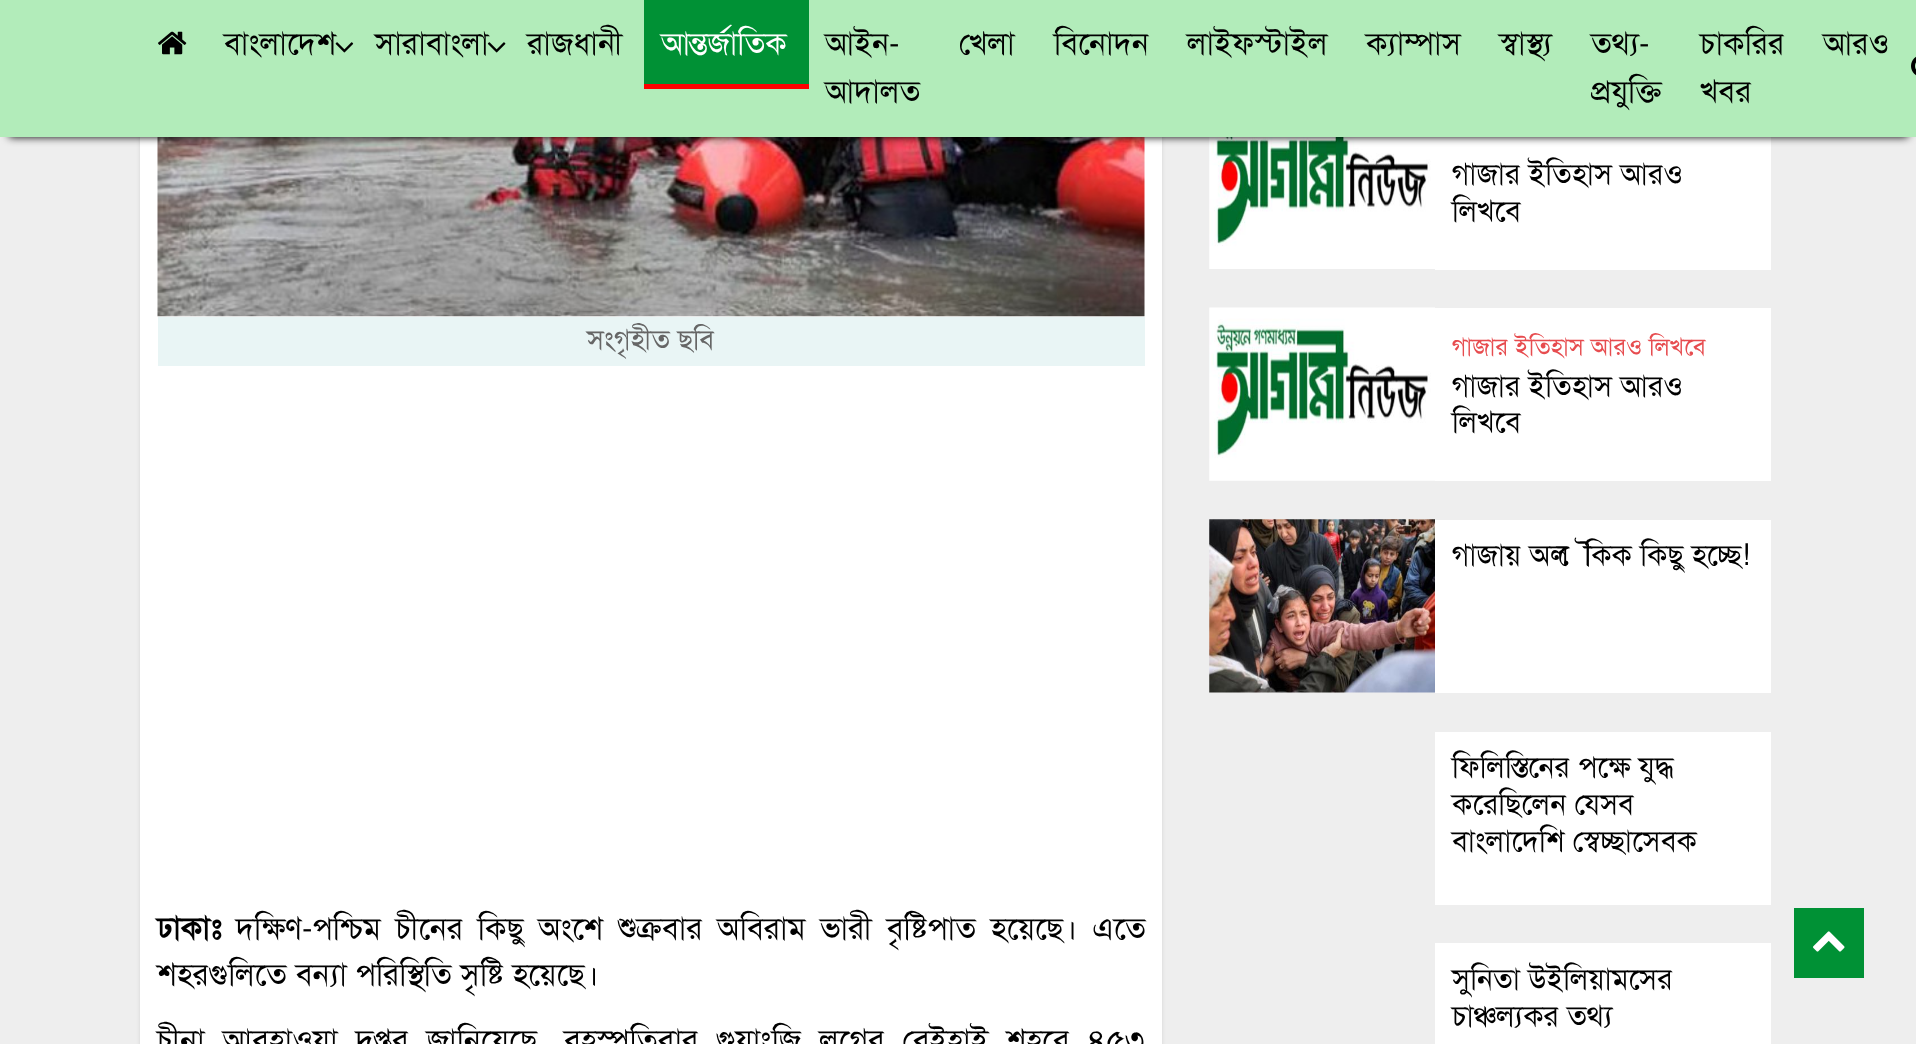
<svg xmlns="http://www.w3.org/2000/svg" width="1916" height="1044">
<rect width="100%" height="100%" fill="#eee"/>
<rect x="140" y="-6" width="1022" height="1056" fill="#0000001a" filter="blur(2px)"/>
<rect x="140" y="137" width="1022" height="907" fill="#fff"/>
<image x="157" y="137" width="988" height="180" href="media/5.png"/>
<image x="1209" y="137" width="226" height="132" href="media/6.png"/>
<rect x="1435" y="137" width="336" height="133" fill="#fff"/>
<rect x="9" y="18" width="1899" height="119" fill="#000" filter="blur(4.5px)"/>
<rect width="1916" height="137" fill="#b2ecba"/>
<image x="158" y="31" width="29" height="24" href="media/1.png"/>
<text x="224" y="54" style="font-family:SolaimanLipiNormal;font-size:31.5px;fill:#000">বাংলাদেশ</text>
<image x="335" y="42" width="19" height="11" href="media/2.png"/>
<text x="375" y="54" style="font-family:SolaimanLipiNormal;font-size:31.5px;fill:#000">সারাবাংলা</text>
<image x="487" y="42" width="19" height="11" href="media/3.png"/>
<text x="527" y="54" style="font-family:SolaimanLipiNormal;font-size:31.5px;fill:#000">রাজধানী</text>
<rect x="644" width="165" height="84" fill="#009135"/>
<text x="661" y="54" style="font-family:SolaimanLipiNormal;font-size:31.5px;fill:#fff">আন্তর্জাতিক</text>
<rect x="644" y="84" width="165" height="5" fill="#f00"/>
<text x="825" y="54" style="font-family:SolaimanLipiNormal;font-size:31.5px;fill:#000">আইন-</text>
<text x="825" y="102" style="font-family:SolaimanLipiNormal;font-size:31.5px;fill:#000">আদালত</text>
<text x="959" y="54" style="font-family:SolaimanLipiNormal;font-size:31.5px;fill:#000">খেলা</text>
<text x="1054" y="54" style="font-family:SolaimanLipiNormal;font-size:31.5px;fill:#000">বিনোদন</text>
<text x="1187" y="54" style="font-family:SolaimanLipiNormal;font-size:31.5px;fill:#000">লাইফস্টাইল</text>
<text x="1366" y="54" style="font-family:SolaimanLipiNormal;font-size:31.5px;fill:#000">ক্যাম্পাস</text>
<text x="1499" y="54" style="font-family:SolaimanLipiNormal;font-size:31.5px;fill:#000">স্বাস্থ্য</text>
<text x="1591" y="54" style="font-family:SolaimanLipiNormal;font-size:31.5px;fill:#000">তথ্য-</text>
<text x="1591" y="102" style="font-family:SolaimanLipiNormal;font-size:31.5px;fill:#000">প্রযুক্তি</text>
<text x="1700" y="54" style="font-family:SolaimanLipiNormal;font-size:31.5px;fill:#000">চাকরির</text>
<text x="1700" y="102" style="font-family:SolaimanLipiNormal;font-size:31.5px;fill:#000">খবর</text>
<text x="1823" y="54" style="font-family:SolaimanLipiNormal;font-size:31.5px;fill:#000">আরও</text>
<image x="1911" y="56" width="5" height="20" href="media/4.png"/>
<rect x="158" y="317" width="987" height="49" fill="#e9f5f5"/>
<text x="587" y="349" style="font-family:SolaimanLipiNormal;font-size:28px;fill:#666">সংগৃহীত ছবি</text>
<text x="157" y="939" style="font-family:SolaimanLipiNormal;font-size:31.5px;font-weight:bold;fill:#000">ঢাকাঃ</text>
<text x="236" y="939" word-spacing="6" style="font-family:SolaimanLipiNormal;font-size:31.5px;fill:#000">দক্ষিণ-পশ্চিম চীনের কিছু অংশে শুক্রবার অবিরাম ভারী বৃষ্টিপাত হয়েছে। এতে</text>
<text x="157" y="985" style="font-family:SolaimanLipiNormal;font-size:31.5px;fill:#000">শহরগুলিতে বন্যা পরিস্থিতি সৃষ্টি হয়েছে।</text>
<text x="157" y="1051" word-spacing="9.25" style="font-family:SolaimanLipiNormal;font-size:31.5px;fill:#000">চীনা আবহাওয়া দপ্তর জানিয়েছে, বৃহস্পতিবার গুয়াংজি লগের বেইহাই শহরে ৪৫৩</text>
<text x="1452" y="184" style="font-family:SolaimanLipiNormal;font-size:29.75px;fill:#000">গাজার ইতিহাস আরও</text>
<text x="1452" y="221" style="font-family:SolaimanLipiNormal;font-size:29.75px;fill:#000">লিখবে</text>
<image x="1209" y="307" width="226" height="174" href="media/7.png"/>
<rect x="1435" y="308" width="336" height="173" fill="#fff"/>
<text x="1452" y="355" style="font-family:SolaimanLipiNormal;font-size:24.5px;fill:#e74c4f">গাজার ইতিহাস আরও লিখবে</text>
<text x="1452" y="396" style="font-family:SolaimanLipiNormal;font-size:29.75px;fill:#000">গাজার ইতিহাস আরও</text>
<text x="1452" y="432" style="font-family:SolaimanLipiNormal;font-size:29.75px;fill:#000">লিখবে</text>
<image x="1209" y="519" width="226" height="174" href="media/8.png"/>
<rect x="1435" y="520" width="336" height="173" fill="#fff"/>
<text x="1452" y="565" style="font-family:SolaimanLipiNormal;font-size:29.75px;fill:#000">গাজায় অলৌকিক কিছু হচ্ছে!</text>
<rect x="1435" y="732" width="336" height="173" fill="#fff"/>
<text x="1452" y="777" style="font-family:SolaimanLipiNormal;font-size:29.75px;fill:#000">ফিলিস্তিনের পক্ষে যুদ্ধ</text>
<text x="1452" y="814" style="font-family:SolaimanLipiNormal;font-size:29.75px;fill:#000">করেছিলেন যেসব</text>
<text x="1452" y="851" style="font-family:SolaimanLipiNormal;font-size:29.75px;fill:#000">বাংলাদেশি স্বেচ্ছাসেবক</text>
<rect x="1435" y="943" width="336" height="101" fill="#fff"/>
<text x="1452" y="989" style="font-family:SolaimanLipiNormal;font-size:29.75px;fill:#000">সুনিতা উইলিয়ামসের</text>
<text x="1452" y="1026" style="font-family:SolaimanLipiNormal;font-size:29.75px;fill:#000">চাঞ্চল্যকর তথ্য</text>
<rect x="1794" y="908" width="70" height="70" fill="#009135"/>
<image x="1813" y="931" width="32" height="21" href="media/9.png"/>
</svg>
